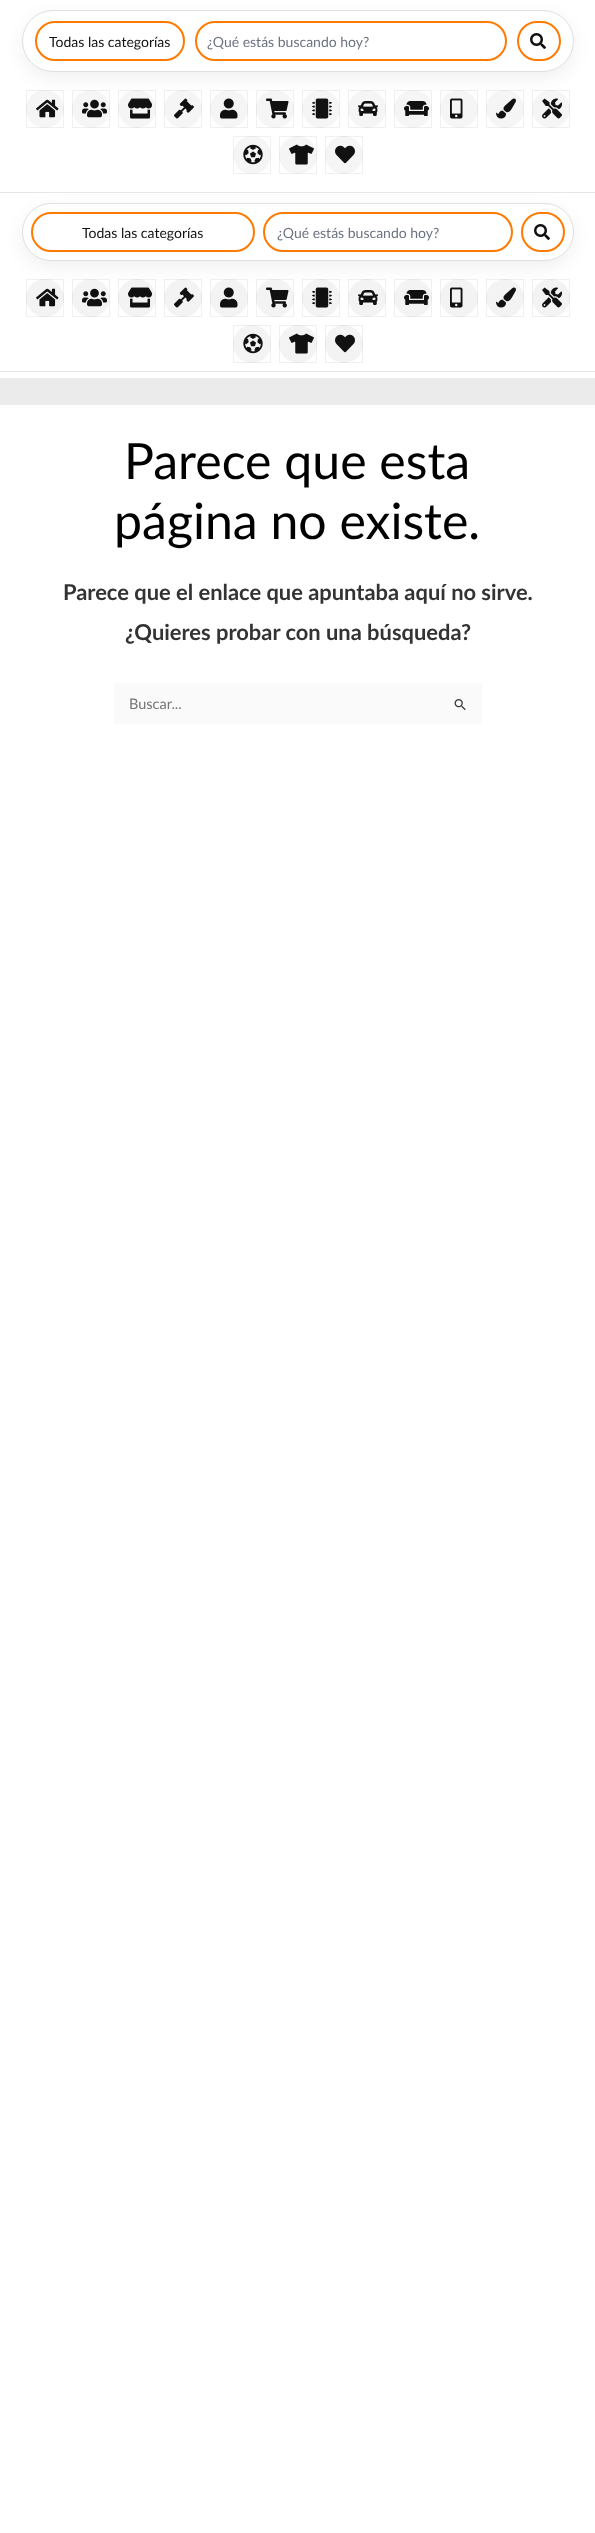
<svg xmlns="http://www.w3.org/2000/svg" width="595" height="2533">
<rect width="100%" height="100%" fill="#fff"/>
<rect x="22" y="209" width="552" height="58" rx="29" fill="#0000000f" filter="blur(9px)"/>
<rect y="192" width="595" height="1" fill="#e5e7eb"/>
<rect x="22" y="16" width="552" height="62" rx="31" fill="#0000000f" filter="blur(9px)"/>
<rect x="22.5" y="10.5" width="551" height="61" rx="30.5" fill="#fff" stroke="#e0e0e0"/>
<rect x="36" y="22" width="148" height="38" rx="19" fill="none" stroke="#ff7a00" stroke-width="2"/>
<text x="49" y="47" style="font-family:Lato;font-size:14px;fill:#111">Todas las categorías</text>
<rect x="196" y="22" width="310" height="38" rx="19" fill="none" stroke="#ff7a00" stroke-width="2"/>
<text x="207" y="47" style="font-family:Lato;font-size:14px;fill:#6b7280">¿Qué estás buscando hoy?</text>
<rect x="518" y="22" width="42" height="38" rx="19" fill="none" stroke="#ff7a00" stroke-width="2"/>
<image x="530" y="33" width="16" height="16" href="media/1.png"/>
<circle cx="45" cy="109" r="19" fill="#f5f5f5"/>
<rect x="26.5" y="90.5" width="37" height="37" fill="none" stroke="#0000000f"/>
<image x="36" y="99" width="23" height="19" href="media/2.png"/>
<circle cx="91" cy="109" r="19" fill="#f5f5f5"/>
<rect x="72.5" y="90.5" width="37" height="37" fill="none" stroke="#0000000f"/>
<image x="82" y="99" width="25" height="19" href="media/3.png"/>
<circle cx="137" cy="109" r="19" fill="#f5f5f5"/>
<rect x="118.5" y="90.5" width="37" height="37" fill="none" stroke="#0000000f"/>
<image x="128" y="98" width="24" height="21" href="media/4.png"/>
<circle cx="183" cy="109" r="19" fill="#f5f5f5"/>
<rect x="164.5" y="90.5" width="37" height="37" fill="none" stroke="#0000000f"/>
<image x="174" y="98" width="20" height="21" href="media/5.png"/>
<circle cx="229" cy="109" r="19" fill="#f5f5f5"/>
<rect x="210.5" y="90.5" width="37" height="37" fill="none" stroke="#0000000f"/>
<image x="220" y="98" width="18" height="21" href="media/6.png"/>
<circle cx="275" cy="109" r="19" fill="#f5f5f5"/>
<rect x="256.5" y="90.5" width="37" height="37" fill="none" stroke="#0000000f"/>
<image x="266" y="98" width="23" height="21" href="media/7.png"/>
<circle cx="321" cy="109" r="19" fill="#f5f5f5"/>
<rect x="302.5" y="90.5" width="37" height="37" fill="none" stroke="#0000000f"/>
<image x="312" y="98" width="20" height="21" href="media/8.png"/>
<circle cx="367" cy="109" r="19" fill="#f5f5f5"/>
<rect x="348.5" y="90.5" width="37" height="37" fill="none" stroke="#0000000f"/>
<image x="358" y="101" width="20" height="15" href="media/9.png"/>
<circle cx="413" cy="109" r="19" fill="#f5f5f5"/>
<rect x="394.5" y="90.5" width="37" height="37" fill="none" stroke="#0000000f"/>
<image x="404" y="101" width="25" height="15" href="media/10.png"/>
<circle cx="459" cy="109" r="19" fill="#f5f5f5"/>
<rect x="440.5" y="90.5" width="37" height="37" fill="none" stroke="#0000000f"/>
<image x="450" y="98" width="13" height="21" href="media/11.png"/>
<circle cx="505" cy="109" r="19" fill="#f5f5f5"/>
<rect x="486.5" y="90.5" width="37" height="37" fill="none" stroke="#0000000f"/>
<image x="496" y="98" width="20" height="21" href="media/12.png"/>
<circle cx="551" cy="109" r="19" fill="#f5f5f5"/>
<rect x="532.5" y="90.5" width="37" height="37" fill="none" stroke="#0000000f"/>
<image x="542" y="98" width="20" height="21" href="media/13.png"/>
<circle cx="252" cy="155" r="19" fill="#f5f5f5"/>
<rect x="233.5" y="136.5" width="37" height="37" fill="none" stroke="#0000000f"/>
<image x="243" y="144" width="20" height="21" href="media/14.png"/>
<circle cx="298" cy="155" r="19" fill="#f5f5f5"/>
<rect x="279.5" y="136.5" width="37" height="37" fill="none" stroke="#0000000f"/>
<image x="289" y="144" width="25" height="21" href="media/15.png"/>
<circle cx="344" cy="155" r="19" fill="#f5f5f5"/>
<rect x="325.5" y="136.5" width="37" height="37" fill="none" stroke="#0000000f"/>
<image x="335" y="145" width="20" height="19" href="media/16.png"/>
<rect y="371" width="595" height="1" fill="#e5e7eb"/>
<rect x="22.5" y="203.5" width="551" height="57" rx="28.5" fill="#fff" stroke="#e0e0e0"/>
<rect x="32" y="213" width="222" height="38" rx="19" fill="none" stroke="#ff7a00" stroke-width="2"/>
<text x="82" y="238" style="font-family:Lato;font-size:14px;fill:#111">Todas las categorías</text>
<rect x="264" y="213" width="248" height="38" rx="19" fill="none" stroke="#ff7a00" stroke-width="2"/>
<text x="277" y="238" style="font-family:Lato;font-size:14px;fill:#6b7280">¿Qué estás buscando hoy?</text>
<rect x="522" y="213" width="42" height="38" rx="19" fill="none" stroke="#ff7a00" stroke-width="2"/>
<image x="534" y="224" width="16" height="16" href="media/1.png"/>
<circle cx="45" cy="298" r="19" fill="#f3f3f3"/>
<rect x="26.5" y="279.5" width="37" height="37" fill="none" stroke="#0000000f"/>
<image x="36" y="288" width="23" height="19" href="media/17.png"/>
<circle cx="91" cy="298" r="19" fill="#f3f3f3"/>
<rect x="72.5" y="279.5" width="37" height="37" fill="none" stroke="#0000000f"/>
<image x="82" y="288" width="25" height="19" href="media/18.png"/>
<circle cx="137" cy="298" r="19" fill="#f3f3f3"/>
<rect x="118.5" y="279.5" width="37" height="37" fill="none" stroke="#0000000f"/>
<image x="128" y="287" width="24" height="21" href="media/19.png"/>
<circle cx="183" cy="298" r="19" fill="#f3f3f3"/>
<rect x="164.5" y="279.5" width="37" height="37" fill="none" stroke="#0000000f"/>
<image x="174" y="287" width="20" height="21" href="media/20.png"/>
<circle cx="229" cy="298" r="19" fill="#f3f3f3"/>
<rect x="210.5" y="279.5" width="37" height="37" fill="none" stroke="#0000000f"/>
<image x="220" y="287" width="18" height="21" href="media/21.png"/>
<circle cx="275" cy="298" r="19" fill="#f3f3f3"/>
<rect x="256.5" y="279.5" width="37" height="37" fill="none" stroke="#0000000f"/>
<image x="266" y="287" width="23" height="21" href="media/22.png"/>
<circle cx="321" cy="298" r="19" fill="#f3f3f3"/>
<rect x="302.5" y="279.5" width="37" height="37" fill="none" stroke="#0000000f"/>
<image x="312" y="287" width="20" height="21" href="media/23.png"/>
<circle cx="367" cy="298" r="19" fill="#f3f3f3"/>
<rect x="348.5" y="279.5" width="37" height="37" fill="none" stroke="#0000000f"/>
<image x="358" y="290" width="20" height="15" href="media/24.png"/>
<circle cx="413" cy="298" r="19" fill="#f3f3f3"/>
<rect x="394.5" y="279.5" width="37" height="37" fill="none" stroke="#0000000f"/>
<image x="404" y="290" width="25" height="15" href="media/25.png"/>
<circle cx="459" cy="298" r="19" fill="#f3f3f3"/>
<rect x="440.5" y="279.5" width="37" height="37" fill="none" stroke="#0000000f"/>
<image x="450" y="287" width="13" height="21" href="media/26.png"/>
<circle cx="505" cy="298" r="19" fill="#f3f3f3"/>
<rect x="486.5" y="279.5" width="37" height="37" fill="none" stroke="#0000000f"/>
<image x="496" y="287" width="20" height="21" href="media/27.png"/>
<circle cx="551" cy="298" r="19" fill="#f3f3f3"/>
<rect x="532.5" y="279.5" width="37" height="37" fill="none" stroke="#0000000f"/>
<image x="542" y="287" width="20" height="21" href="media/28.png"/>
<circle cx="252" cy="344" r="19" fill="#f3f3f3"/>
<rect x="233.5" y="325.5" width="37" height="37" fill="none" stroke="#0000000f"/>
<image x="243" y="333" width="20" height="21" href="media/29.png"/>
<circle cx="298" cy="344" r="19" fill="#f3f3f3"/>
<rect x="279.5" y="325.5" width="37" height="37" fill="none" stroke="#0000000f"/>
<image x="289" y="333" width="25" height="21" href="media/30.png"/>
<circle cx="344" cy="344" r="19" fill="#f3f3f3"/>
<rect x="325.5" y="325.5" width="37" height="37" fill="none" stroke="#0000000f"/>
<image x="335" y="334" width="20" height="19" href="media/31.png"/>
<rect y="378" width="595" height="27" fill="#ebebeb"/>
<text x="124" y="479" style="font-family:Lato;font-size:50px;fill:#000">Parece que esta</text>
<text x="114" y="539" style="font-family:Lato;font-size:50px;fill:#000">página no existe.</text>
<text x="63" y="600" style="font-family:Lato;font-size:21.9px;font-weight:bold;fill:#333">Parece que el enlace que apuntaba aquí no sirve.</text>
<text x="125" y="640" style="font-family:Lato;font-size:21.9px;font-weight:bold;fill:#333">¿Quieres probar con una búsqueda?</text>
<rect x="113.5" y="682.5" width="369" height="42" rx="1.5" fill="#fafafa" stroke="#fff"/>
<text x="129" y="709" style="font-family:Lato;font-size:14.5px;fill:#757575">Buscar...</text>
<image x="454" y="699" width="12" height="12" href="media/32.png"/>
</svg>
